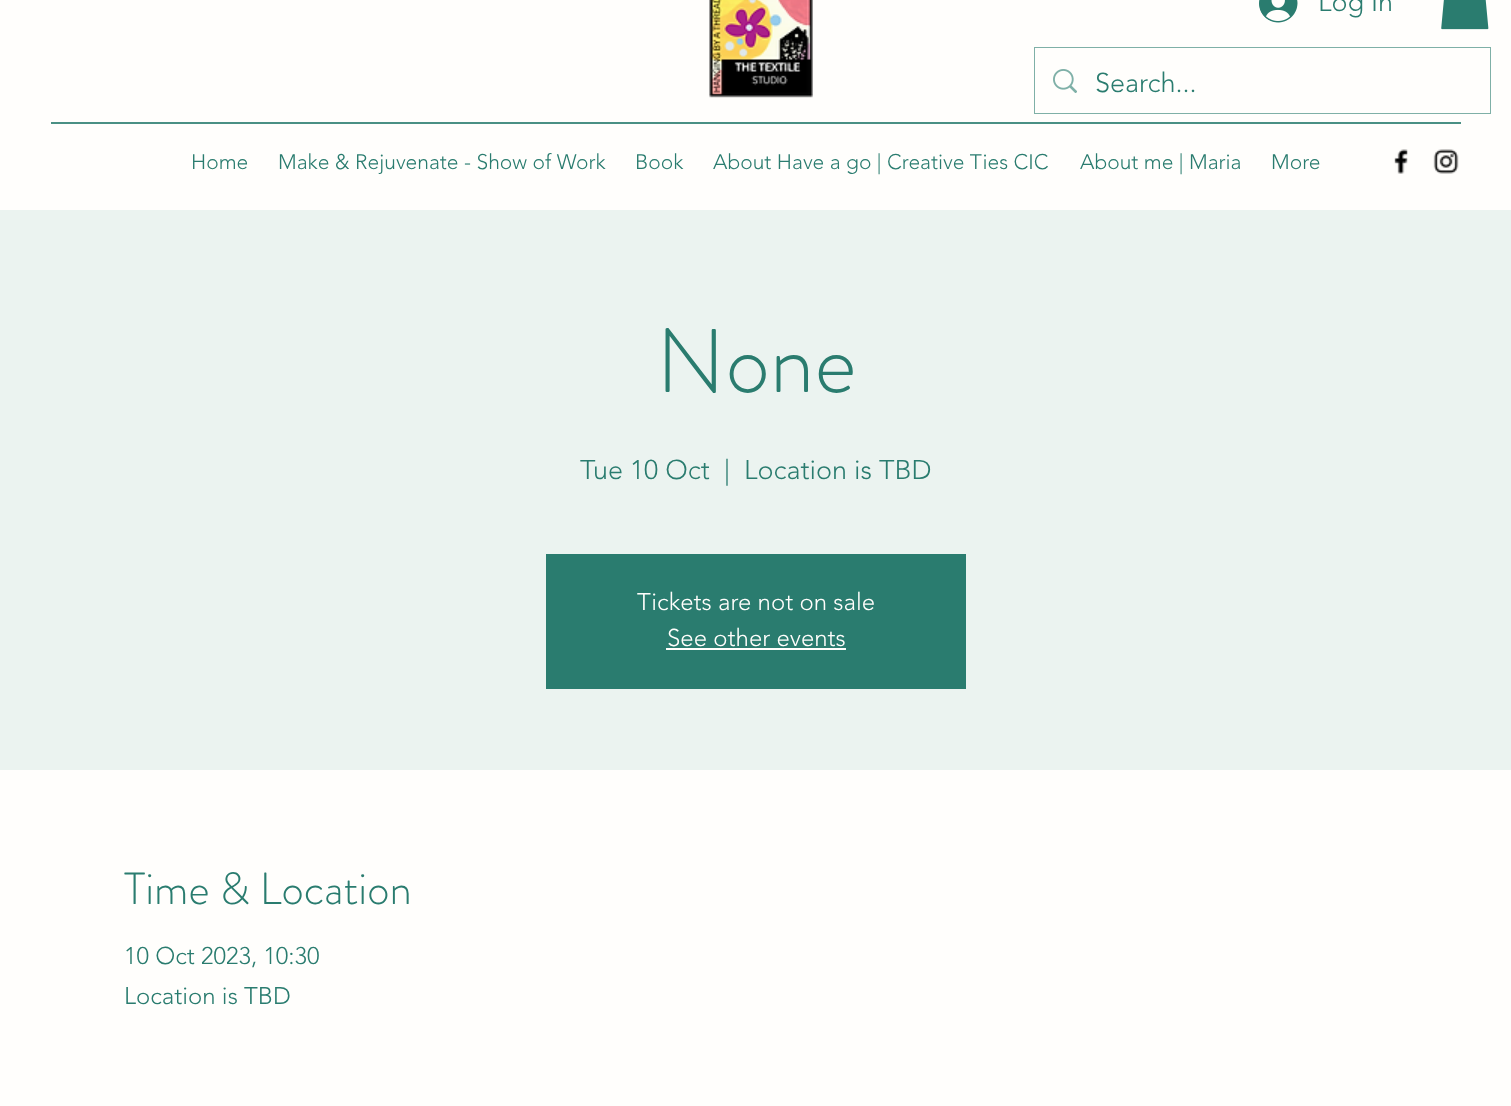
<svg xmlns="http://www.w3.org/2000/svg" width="1511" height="1106">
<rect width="100%" height="100%" fill="#fffefc"/>
<image x="709" y="0" width="104" height="98" href="media/1.png"/>
<image x="1259" y="0" width="39" height="23" href="media/2.png"/>
<text x="1318" y="11" style="font-family:'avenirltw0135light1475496';font-size:27px;font-weight:300;fill:#2a7c6f">Log In</text>
<image x="1441" y="0" width="48" height="30" href="media/3.png"/>
<rect x="1035" y="48" width="455" height="65" fill="none" stroke="#7fb0a7" stroke-width="2"/>
<rect x="1035" y="48" width="455" height="65" fill="#fffefc"/>
<image x="1053" y="69" width="24" height="24" href="media/4.png"/>
<text x="1095" y="92" style="font-family:'avenirltw0135light1475496';font-size:27px;font-weight:300;fill:#2a7c6f">Search...</text>
<rect x="51" y="122" width="1410" height="2" fill="#4a9084"/>
<text x="191" y="169" style="font-family:'avenirltw0135light1475496';font-size:21px;font-weight:300;fill:#2a7c6f">Home</text>
<text x="278" y="169" style="font-family:'avenirltw0135light1475496';font-size:21px;font-weight:300;fill:#2a7c6f">Make &amp; Rejuvenate - Show of Work</text>
<text x="635" y="169" style="font-family:'avenirltw0135light1475496';font-size:21px;font-weight:300;fill:#2a7c6f">Book</text>
<text x="713" y="169" style="font-family:'avenirltw0135light1475496';font-size:21px;font-weight:300;fill:#2a7c6f">About Have a go | Creative Ties CIC</text>
<text x="1080" y="169" style="font-family:'avenirltw0135light1475496';font-size:21px;font-weight:300;fill:#2a7c6f">About me | Maria</text>
<text x="1271" y="169" style="font-family:'avenirltw0135light1475496';font-size:21px;font-weight:300;fill:#2a7c6f">More</text>
<image x="1394" y="149" width="14" height="25" href="media/5.png"/>
<image x="1433" y="149" width="26" height="25" href="media/6.png"/>
<rect y="210" width="1511" height="560" fill="#ebf3f0"/>
<text x="656" y="392" style="font-family:'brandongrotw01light';font-size:90px;font-weight:300;fill:#2a7c6f">None</text>
<text x="580" y="479" style="font-family:'avenirltw0135light1475496';font-size:27px;font-weight:300;fill:#2a7c6f">Tue 10 Oct</text>
<text x="724" y="479" style="font-family:'avenirltw0135light1475496';font-size:27px;font-weight:300;fill:#2a7c6f">|</text>
<text x="744" y="479" style="font-family:'avenirltw0135light1475496';font-size:27px;font-weight:300;fill:#2a7c6f">Location is TBD</text>
<rect x="546" y="554" width="420" height="135" fill="#2a7c6f"/>
<text x="637" y="610" style="font-family:'avenirltw0135light1475496';font-size:24px;font-weight:300;fill:#fffefc">Tickets are not on sale</text>
<text x="667" y="646" style="font-family:'avenirltw0135light1475496';font-size:24px;font-weight:300;fill:#fffefc">See other events</text>
<rect x="666" y="648" width="180" height="2" fill="#fffefc"/>
<text x="124" y="904" style="font-family:'brandongrotw01light';font-size:45px;font-weight:300;fill:#2a7c6f">Time &amp; Location</text>
<text x="124" y="964" style="font-family:'avenirltw0135light1475496';font-size:24px;font-weight:300;fill:#2a7c6f">10 Oct 2023, 10:30</text>
<text x="124" y="1004" style="font-family:'avenirltw0135light1475496';font-size:24px;font-weight:300;fill:#2a7c6f">Location is TBD</text>
</svg>
